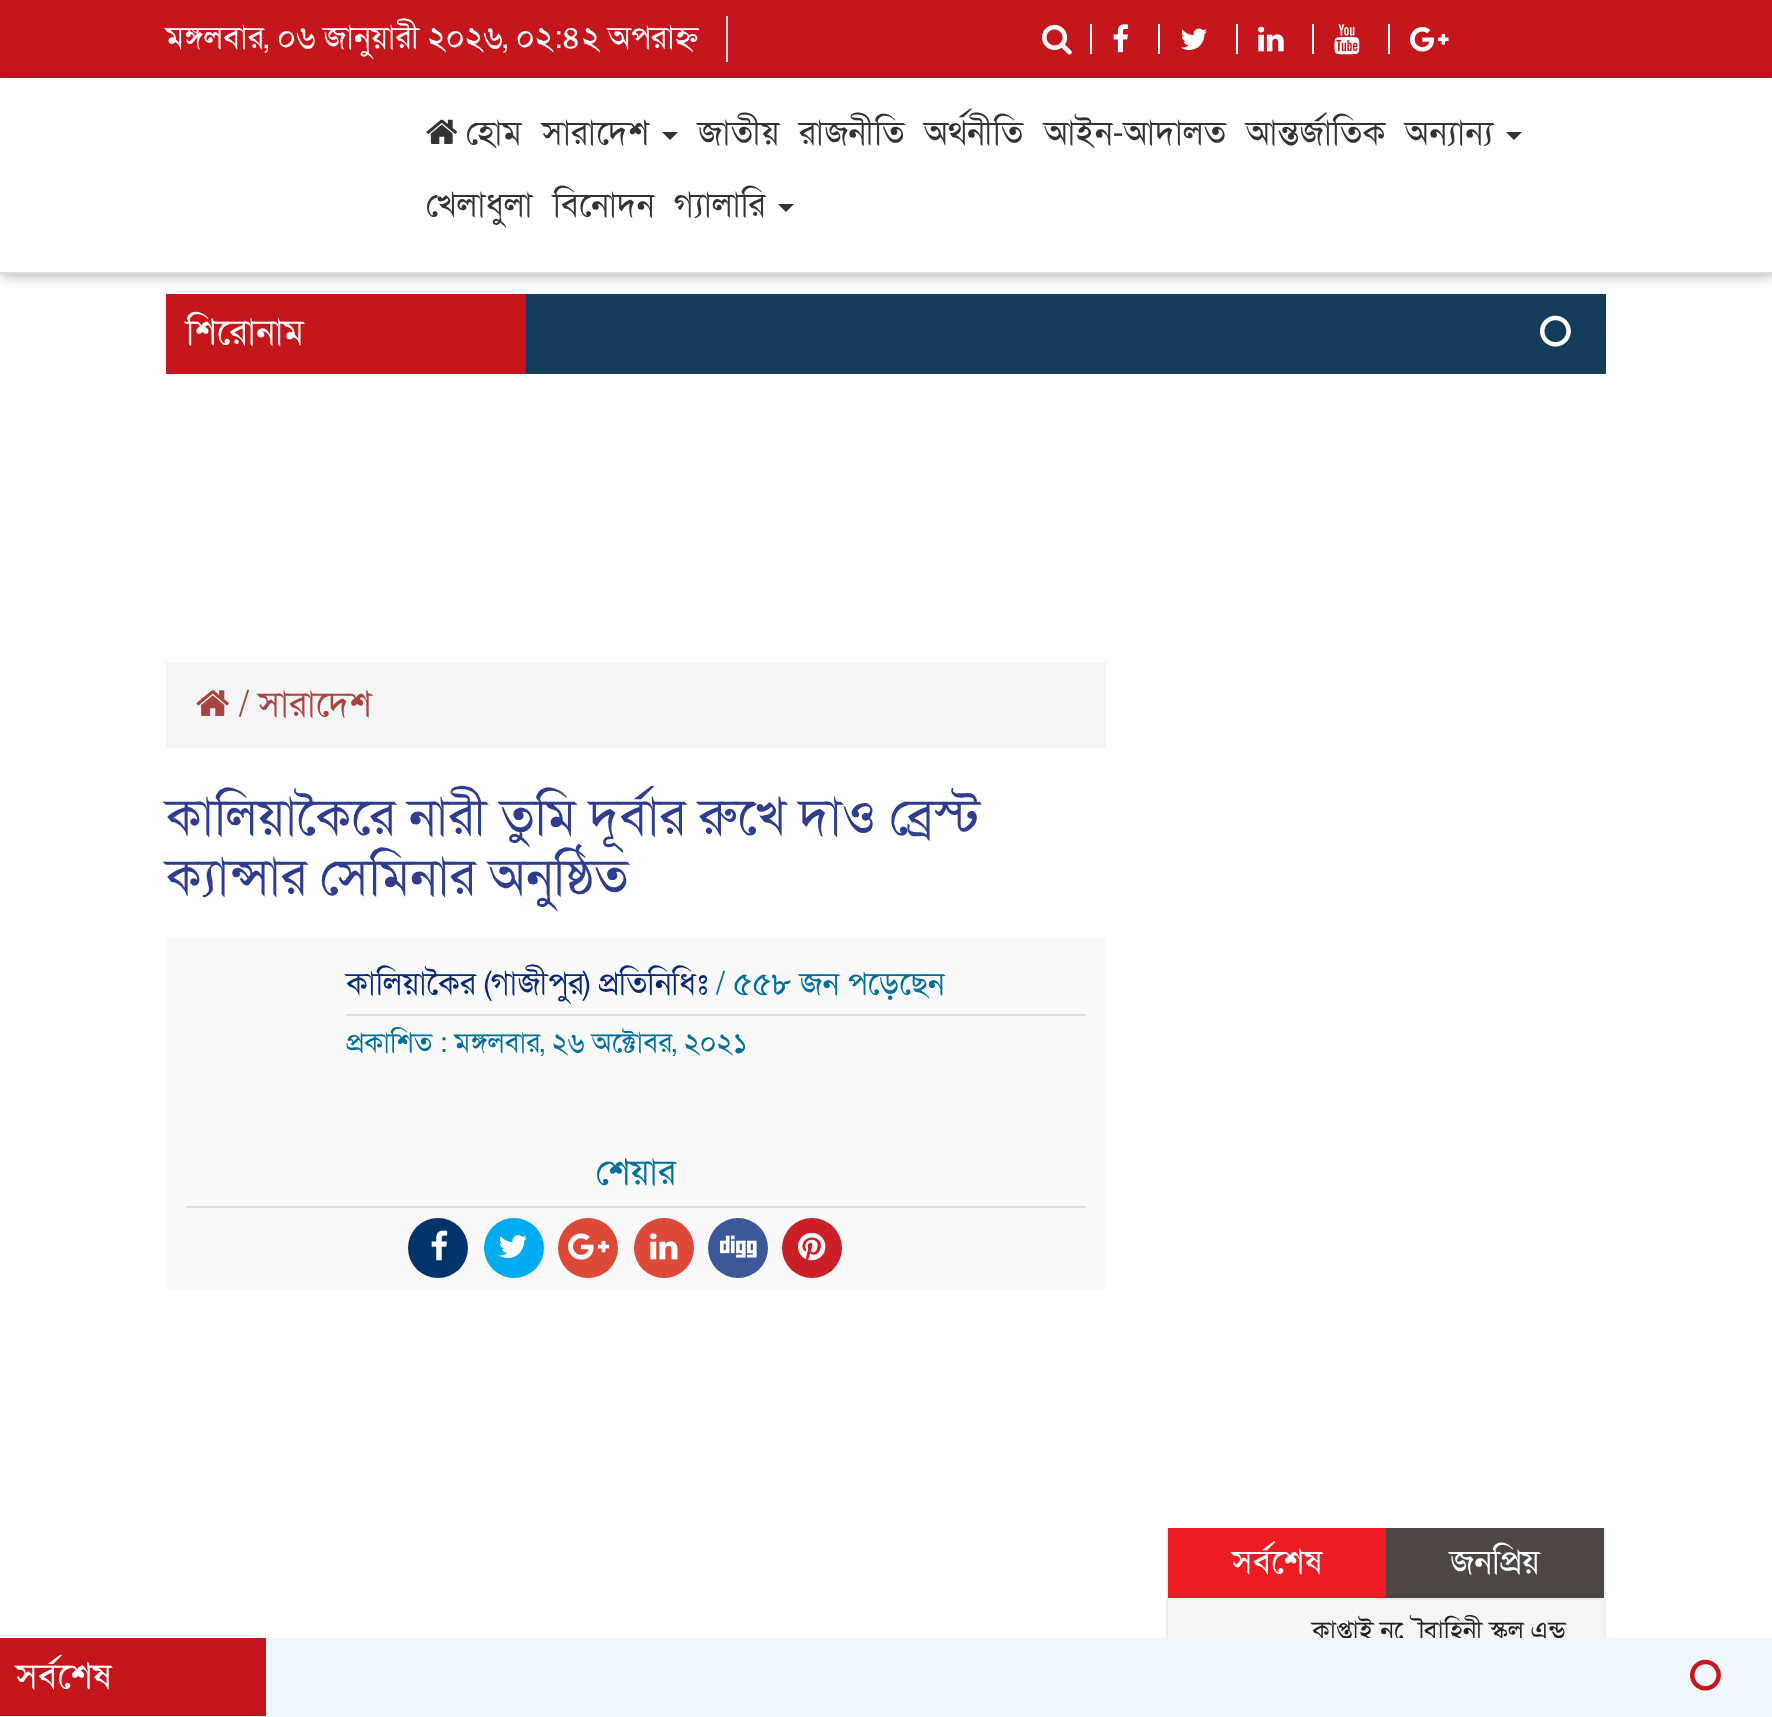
<svg xmlns="http://www.w3.org/2000/svg" width="1772" height="1717">
<defs>
<clipPath id="clip1"><path d="M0 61h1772v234h-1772zm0 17h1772v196h-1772z" clip-rule="evenodd"/></clipPath>
</defs>
<rect width="100%" height="100%" fill="#fff"/>
<rect width="1772" height="78" fill="#c5161d"/>
<g clip-path="url(#clip1)">
<rect x="2" y="80" width="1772" height="196" fill="#0000004d" filter="blur(6px)"/>
</g>
<rect x="726" y="16" width="2" height="46" fill="#ddd"/>
<text x="166" y="48" style="font-family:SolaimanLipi;font-size:32px;fill:#fff">মঙ্গলবার, ০৬ জানুয়ারী ২০২৬, ০২:৪২ অপরাহ্ন</text>
<image x="1042" y="24" width="30" height="31" href="media/1.png"/>
<rect x="1090" y="24" width="2" height="30" fill="#fff"/>
<image x="1113" y="24" width="16" height="29" href="media/2.png"/>
<rect x="1158" y="24" width="2" height="30" fill="#fff"/>
<image x="1181" y="28" width="26" height="22" href="media/3.png"/>
<rect x="1236" y="24" width="2" height="30" fill="#fff"/>
<image x="1258" y="26" width="26" height="26" href="media/4.png"/>
<rect x="1312" y="24" width="2" height="30" fill="#fff"/>
<image x="1334" y="24" width="26" height="31" href="media/5.png"/>
<rect x="1388" y="24" width="2" height="30" fill="#fff"/>
<image x="1410" y="27" width="39" height="25" href="media/6.png"/>
<rect y="272" width="1772" height="2" fill="#ddd"/>
<image x="426" y="119" width="31" height="25" href="media/7.png"/>
<text x="466" y="144" style="font-family:SolaimanLipi;font-size:34px;fill:#333">হোম</text>
<text x="542" y="144" style="font-family:SolaimanLipi;font-size:34px;fill:#333">সারাদেশ</text>
<path d="M662 132h16l-8 8z" fill="#333"/>
<text x="698" y="144" style="font-family:SolaimanLipi;font-size:34px;fill:#333">জাতীয়</text>
<text x="799" y="144" style="font-family:SolaimanLipi;font-size:34px;fill:#333">রাজনীতি</text>
<text x="924" y="144" style="font-family:SolaimanLipi;font-size:34px;fill:#333">অর্থনীতি</text>
<text x="1044" y="144" style="font-family:SolaimanLipi;font-size:34px;fill:#333">আইন-আদালত</text>
<text x="1246" y="144" style="font-family:SolaimanLipi;font-size:34px;fill:#333">আন্তর্জাতিক</text>
<text x="1405" y="144" style="font-family:SolaimanLipi;font-size:34px;fill:#333">অন্যান্য</text>
<path d="M1506 132h16l-8 8z" fill="#333"/>
<text x="426" y="216" style="font-family:SolaimanLipi;font-size:34px;fill:#333">খেলাধুলা</text>
<text x="553" y="216" style="font-family:SolaimanLipi;font-size:34px;fill:#333">বিনোদন</text>
<text x="674" y="216" style="font-family:SolaimanLipi;font-size:34px;fill:#333">গ্যালারি</text>
<path d="M778 204h16l-8 8z" fill="#333"/>
<rect x="166" y="294" width="360" height="80" fill="#c5161d"/>
<text x="186" y="344" style="font-family:SolaimanLipi;font-size:36px;fill:#fff">শিরোনাম</text>
<rect x="526" y="294" width="1080" height="80" fill="#133b5a"/>
<image x="1540" y="315" width="31" height="32" href="media/8.png"/>
<rect x="166" y="662" width="940" height="86" fill="#f5f5f5"/>
<image x="196" y="690" width="33" height="26" href="media/9.png"/>
<text x="239" y="716" style="font-family:SolaimanLipi;font-size:36px;fill:#a94442">/ সারাদেশ</text>
<text x="166" y="834" style="font-family:SolaimanLipi;font-size:52px;fill:#2e3d8e">কালিয়াকৈরে নারী তুমি দূর্বার রুখে দাও ব্রেস্ট</text>
<text x="166" y="894" style="font-family:SolaimanLipi;font-size:52px;fill:#2e3d8e">ক্যান্সার সেমিনার অনুষ্ঠিত</text>
<rect x="166" y="938" width="940" height="352" fill="#f9f9f9"/>
<rect x="346" y="1014" width="740" height="2" fill="#ddd"/>
<text x="346" y="994" style="font-family:SolaimanLipi;font-size:32px;fill:#06287b">কালিয়াকৈর (গাজীপুর) প্রতিনিধিঃ</text>
<text x="716" y="994" style="font-family:SolaimanLipi;font-size:32px;fill:#00709b">/ ৫৫৮ জন পড়েছেন</text>
<text x="346" y="1052" style="font-family:SolaimanLipi;font-size:28px;fill:#00709b">প্রকাশিত : মঙ্গলবার, ২৬ অক্টোবর, ২০২১</text>
<rect x="186" y="1206" width="900" height="2" fill="#ddd"/>
<text x="596" y="1184" style="font-family:SolaimanLipi;font-size:36px;fill:#00709b">শেয়ার</text>
<circle cx="438" cy="1248" r="30" fill="#023369"/>
<image x="431" y="1230" width="17" height="31" href="media/10.png"/>
<circle cx="514" cy="1248" r="30" fill="#00acee"/>
<image x="499" y="1235" width="28" height="23" href="media/11.png"/>
<circle cx="588" cy="1248" r="30" fill="#dd4a3a"/>
<image x="568" y="1233" width="42" height="27" href="media/12.png"/>
<circle cx="664" cy="1248" r="30" fill="#dd4a3a"/>
<image x="650" y="1233" width="28" height="27" href="media/13.png"/>
<circle cx="738" cy="1248" r="30" fill="#3b5999"/>
<image x="720" y="1235" width="37" height="23" href="media/14.png"/>
<circle cx="812" cy="1248" r="30" fill="#cb2028"/>
<image x="798" y="1232" width="28" height="29" href="media/15.png"/>
<rect x="1168" y="1600" width="436" height="38" fill="#f5f5f5"/>
<rect x="1386" y="1528" width="218" height="70" fill="#4e4545"/>
<rect x="1604" y="1528" width="2" height="70" fill="#eee"/>
<rect x="1166" y="1528" width="2" height="70" fill="#eee"/>
<rect x="1168" y="1528" width="218" height="70" fill="#ed1b24"/>
<text x="1232" y="1573" style="font-family:SolaimanLipi;font-size:34px;fill:#fff">সর্বশেষ</text>
<text x="1450" y="1573" style="font-family:SolaimanLipi;font-size:34px;fill:#fff">জনপ্রিয়</text>
<rect x="1167" y="1599" width="438" height="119" fill="none" stroke="#eee" stroke-width="2"/>
<text x="1312" y="1639" style="font-family:SolaimanLipi;font-size:26px;fill:#222">কাপ্তাই নৌবাহিনী স্কুল এন্ড</text>
<rect y="1638" width="1772" height="79" fill="#f0f8ff"/>
<rect y="1638" width="266" height="78" fill="#c5161d"/>
<text x="16" y="1688" style="font-family:SolaimanLipi;font-size:36px;fill:#fff">সর্বশেষ</text>
<image x="1690" y="1659" width="31" height="32" href="media/16.png"/>
</svg>
